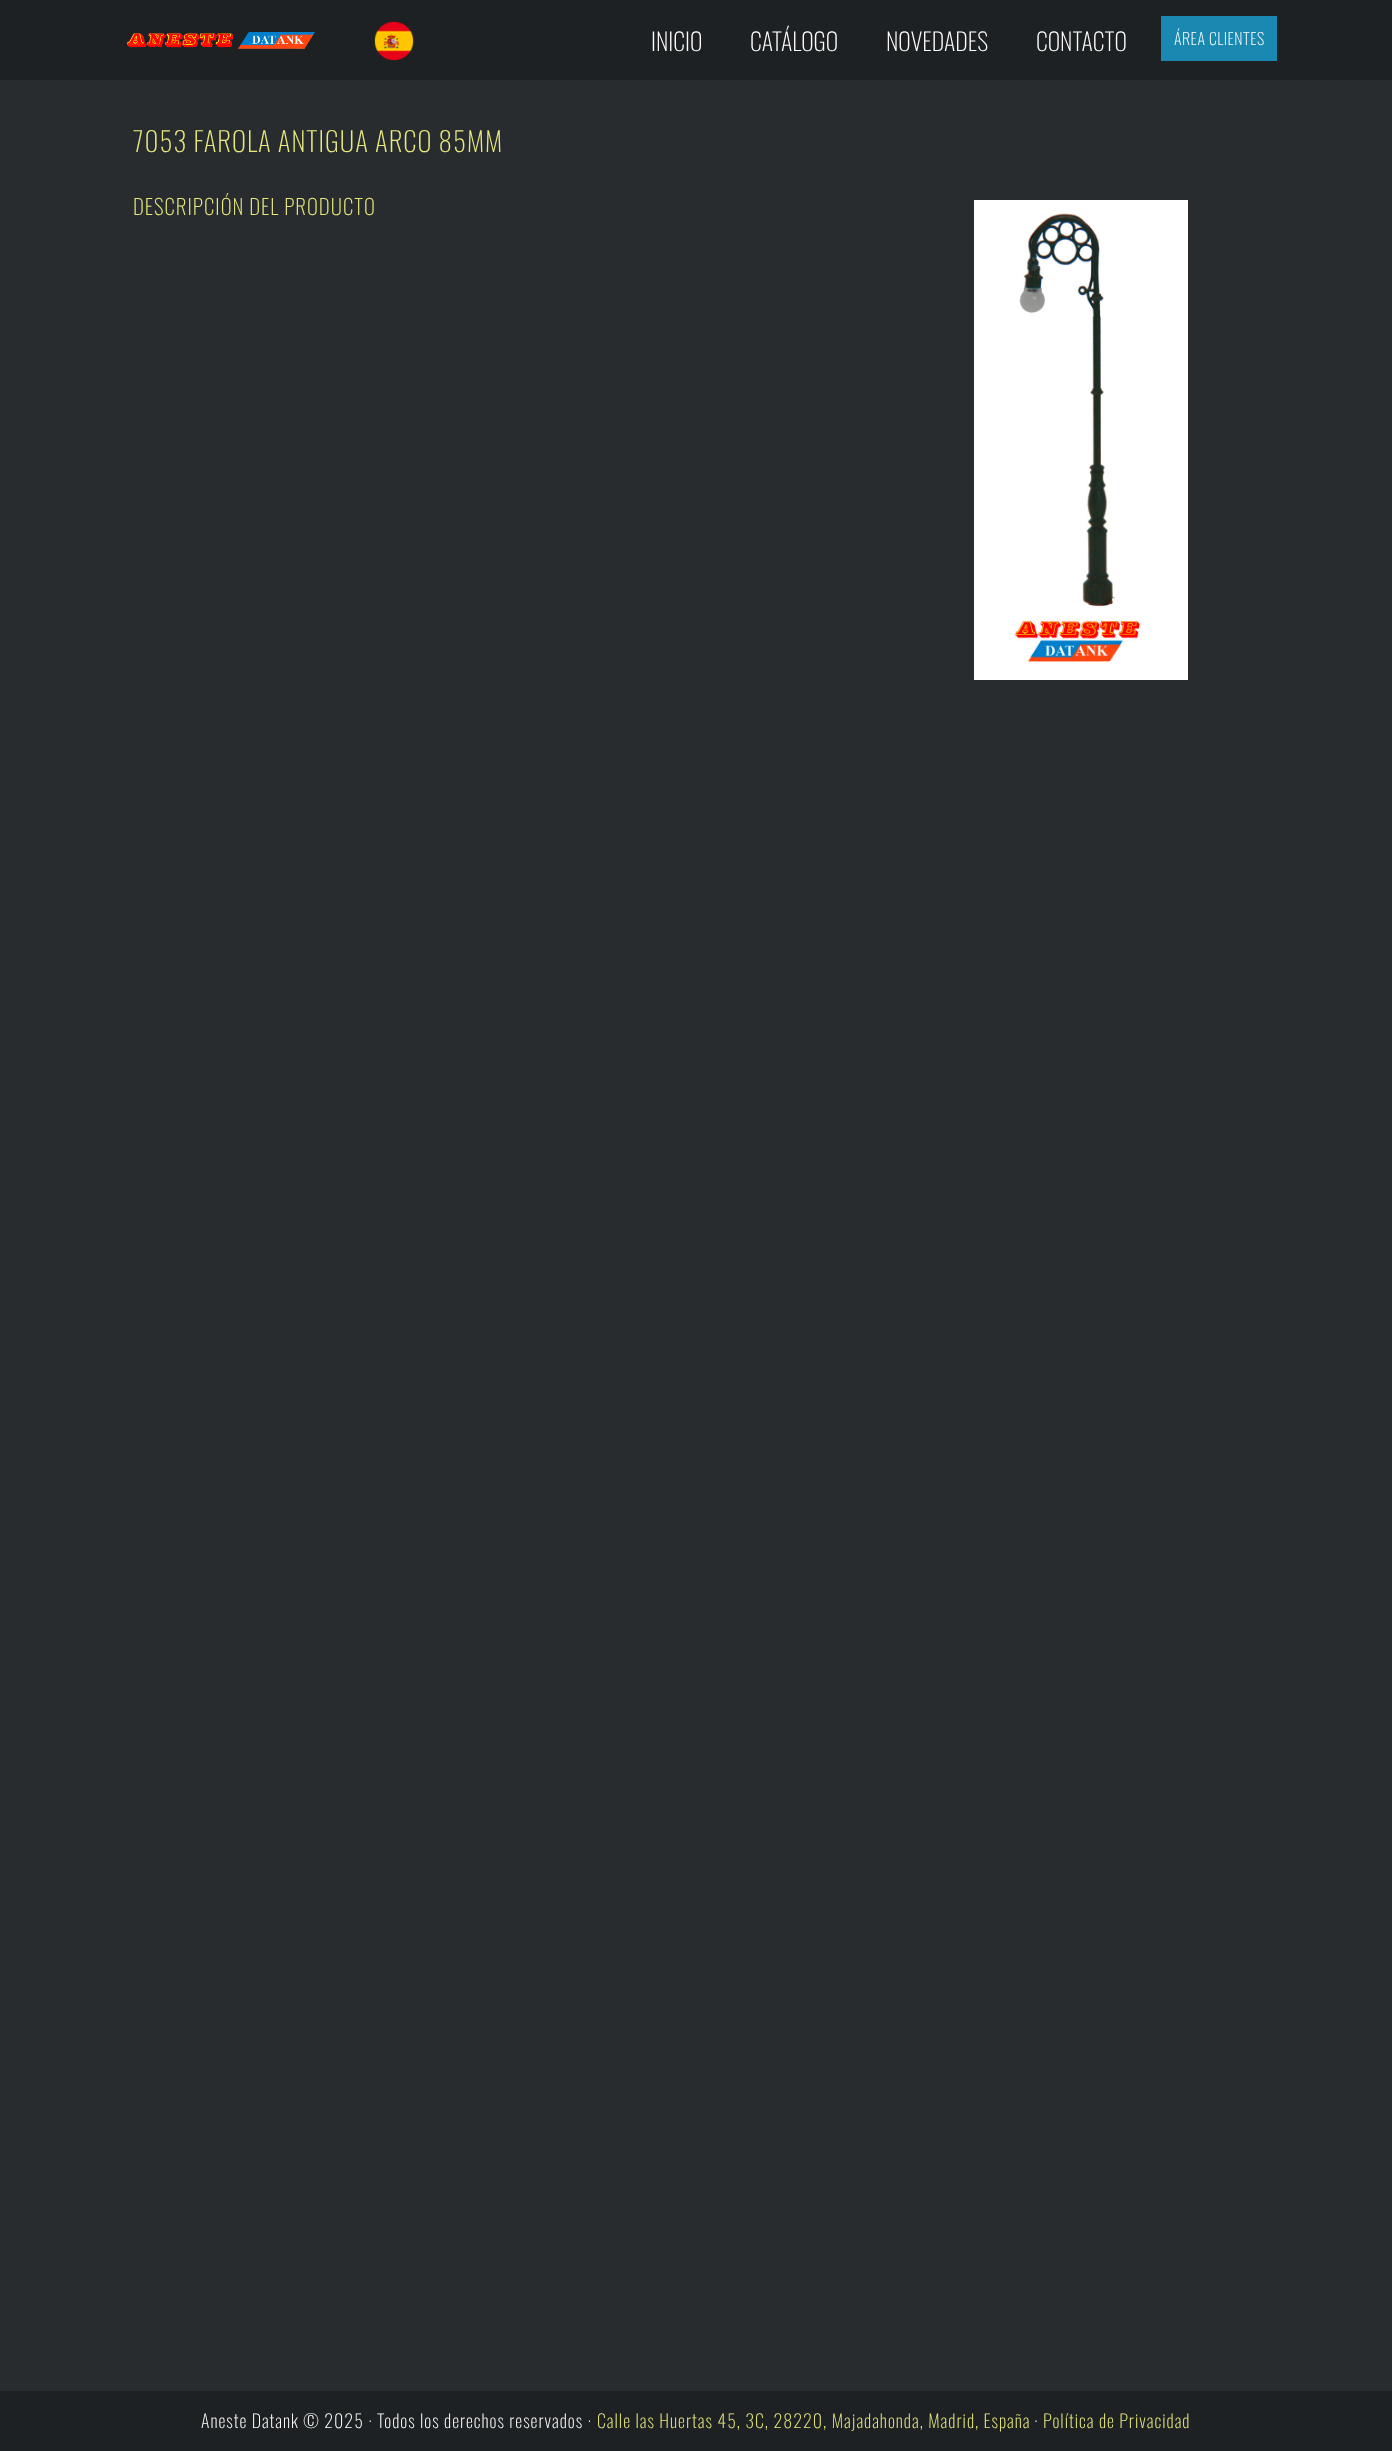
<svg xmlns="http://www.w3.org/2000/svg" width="1392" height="2451">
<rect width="100%" height="100%" fill="#282c2f"/>
<rect width="1392" height="80" fill="#1e2123"/>
<image x="127" y="32" width="188" height="17" href="media/1.png"/>
<image x="374" y="21" width="40" height="40" href="media/2.png"/>
<text x="651" y="51" style="font-family:Oswald;font-size:24px;font-weight:200;fill:#fff">INICIO</text>
<text x="750" y="51" style="font-family:Oswald;font-size:24px;font-weight:200;fill:#fff">CATÁLOGO</text>
<text x="886" y="51" style="font-family:Oswald;font-size:24px;font-weight:200;fill:#fff">NOVEDADES</text>
<text x="1036" y="51" style="font-family:Oswald;font-size:24px;font-weight:200;fill:#fff">CONTACTO</text>
<rect x="1161" y="16" width="116" height="45" fill="#1a89b2"/>
<text x="1174" y="45" style="font-family:Oswald;font-size:16px;font-weight:200;letter-spacing:0.5px;fill:#fff">ÁREA CLIENTES</text>
<text x="133" y="152" style="font-family:Oswald;font-size:27px;font-weight:200;letter-spacing:1px;fill:#e8e97e">7053 FAROLA ANTIGUA ARCO 85MM</text>
<text x="133" y="215" style="font-family:Oswald;font-size:21px;font-weight:200;letter-spacing:1px;fill:#e8e97e">DESCRIPCIÓN DEL PRODUCTO</text>
<image x="974" y="200" width="214" height="480" href="media/3.png"/>
<rect y="2391" width="1392" height="60" fill="#1e2123"/>
<text x="201" y="2428" style="font-family:Oswald;font-size:18px;font-weight:200;letter-spacing:1px;fill:#fff">Aneste Datank © 2025 · Todos los derechos reservados ·</text>
<text x="597" y="2428" style="font-family:Oswald;font-size:18px;font-weight:200;letter-spacing:1px;fill:#e8e97e">Calle las Huertas 45, 3C, 28220, Majadahonda, Madrid, España</text>
<text x="1034" y="2428" style="font-family:Oswald;font-size:18px;font-weight:200;letter-spacing:1px;fill:#fff">·</text>
<text x="1043" y="2428" style="font-family:Oswald;font-size:18px;font-weight:200;letter-spacing:1px;fill:#e8e97e">Política de Privacidad</text>
</svg>
